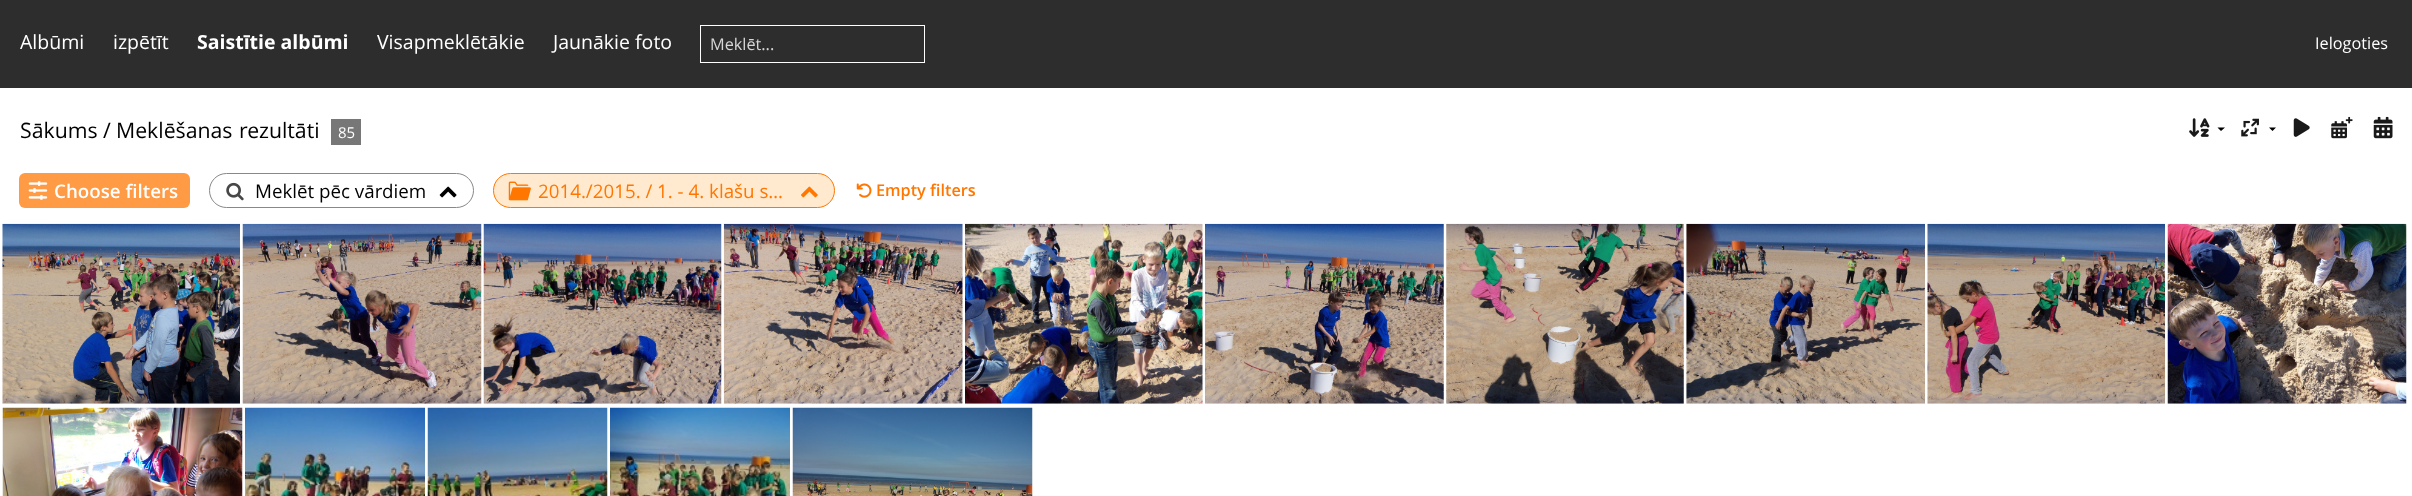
<svg xmlns="http://www.w3.org/2000/svg" width="2412" height="496">
<rect width="100%" height="100%" fill="#fff"/>
<rect width="2412" height="88" fill="#2d2d2d"/>
<text x="20" y="49" style="font-family:Open Sans;font-size:19.5px;fill:#fff">Albūmi</text>
<text x="113" y="49" style="font-family:Open Sans;font-size:19.5px;fill:#fff">izpētīt</text>
<text x="197" y="49" style="font-family:Open Sans;font-size:19.5px;font-weight:bold;fill:#fff">Saistītie albūmi</text>
<text x="377" y="49" style="font-family:Open Sans;font-size:19.5px;fill:#fff">Visapmeklētākie</text>
<text x="553" y="49" style="font-family:Open Sans;font-size:19.5px;fill:#fff">Jaunākie foto</text>
<rect x="700.5" y="25.5" width="224" height="37" fill="none" stroke="#fff"/>
<text x="710" y="50" style="font-family:Open Sans;font-size:16.25px;fill:#d6d6d6">Meklēt...</text>
<text x="2315" y="49" style="font-family:Open Sans;font-size:16.25px;fill:#fff">Ielogoties</text>
<text x="20" y="138" style="font-family:Open Sans;font-size:21.25px;fill:#000">Sākums /</text>
<text x="116" y="138" word-spacing="1" style="font-family:Open Sans;font-size:21.25px;fill:#000">Meklēšanas rezultāti</text>
<rect x="331" y="119" width="30" height="26" fill="#777"/>
<text x="338" y="138" style="font-family:Open Sans;font-size:15px;fill:#fff">85</text>
<image x="2189" y="118" width="21" height="19" href="media/1.png"/>
<path d="M2217.5 127.5h7.5l-4 3.5zm51.5 0h7l-3.5 3.5z" fill="#000"/>
<image x="2331" y="116" width="22" height="23" href="media/2.png"/>
<image x="2373" y="116" width="20" height="23" href="media/3.png"/>
<image x="2241" y="118" width="18" height="19" href="media/4.png"/>
<image x="2293" y="118" width="17" height="19" href="media/5.png"/>
<rect x="19" y="173" width="171" height="35" rx="6" fill="#ff9b44"/>
<image x="28" y="181" width="20" height="19" href="media/6.png"/>
<text x="54" y="198" style="font-family:Open Sans;font-size:18.75px;font-weight:600;fill:#fff">Choose filters</text>
<rect x="209.5" y="173.5" width="264" height="34" rx="17" fill="none" stroke="#888"/>
<image x="226" y="182" width="18" height="19" href="media/7.png"/>
<text x="255" y="198" style="font-family:Open Sans;font-size:18.75px;fill:#000">Meklēt pēc vārdiem</text>
<image x="439" y="186" width="18" height="12" href="media/8.png"/>
<rect x="493.5" y="173.5" width="341" height="34" rx="17" fill="#ffeacf" stroke="#f70"/>
<image x="508" y="181" width="23" height="20" href="media/9.png"/>
<text x="538" y="198" style="font-family:Open Sans;font-size:18.75px;fill:#f70">2014./2015. /</text>
<text x="657" y="198" style="font-family:Open Sans;font-size:18.75px;fill:#f70">1. - 4. klašu s…</text>
<image x="801" y="186" width="17" height="12" href="media/10.png"/>
<image x="856" y="183" width="16" height="15" href="media/11.png"/>
<text x="876" y="196" style="font-family:Open Sans;font-size:16.25px;font-weight:600;fill:#f70">Empty filters</text>
<image x="2" y="223" width="238" height="181" href="media/12.png"/>
<image x="242" y="223" width="240" height="181" href="media/13.png"/>
<image x="483" y="223" width="239" height="181" href="media/14.png"/>
<image x="723" y="223" width="240" height="181" href="media/15.png"/>
<image x="965" y="223" width="238" height="181" href="media/16.png"/>
<image x="1205" y="223" width="239" height="181" href="media/17.png"/>
<image x="1446" y="223" width="238" height="181" href="media/18.png"/>
<image x="1686" y="223" width="239" height="181" href="media/19.png"/>
<image x="1927" y="223" width="238" height="181" href="media/20.png"/>
<image x="2167" y="223" width="240" height="181" href="media/21.png"/>
<image x="2" y="407" width="241" height="89" href="media/22.png"/>
<image x="245" y="407" width="180" height="89" href="media/23.png"/>
<image x="427" y="407" width="181" height="89" href="media/24.png"/>
<image x="610" y="407" width="180" height="89" href="media/25.png"/>
<image x="792" y="407" width="241" height="89" href="media/26.png"/>
</svg>
